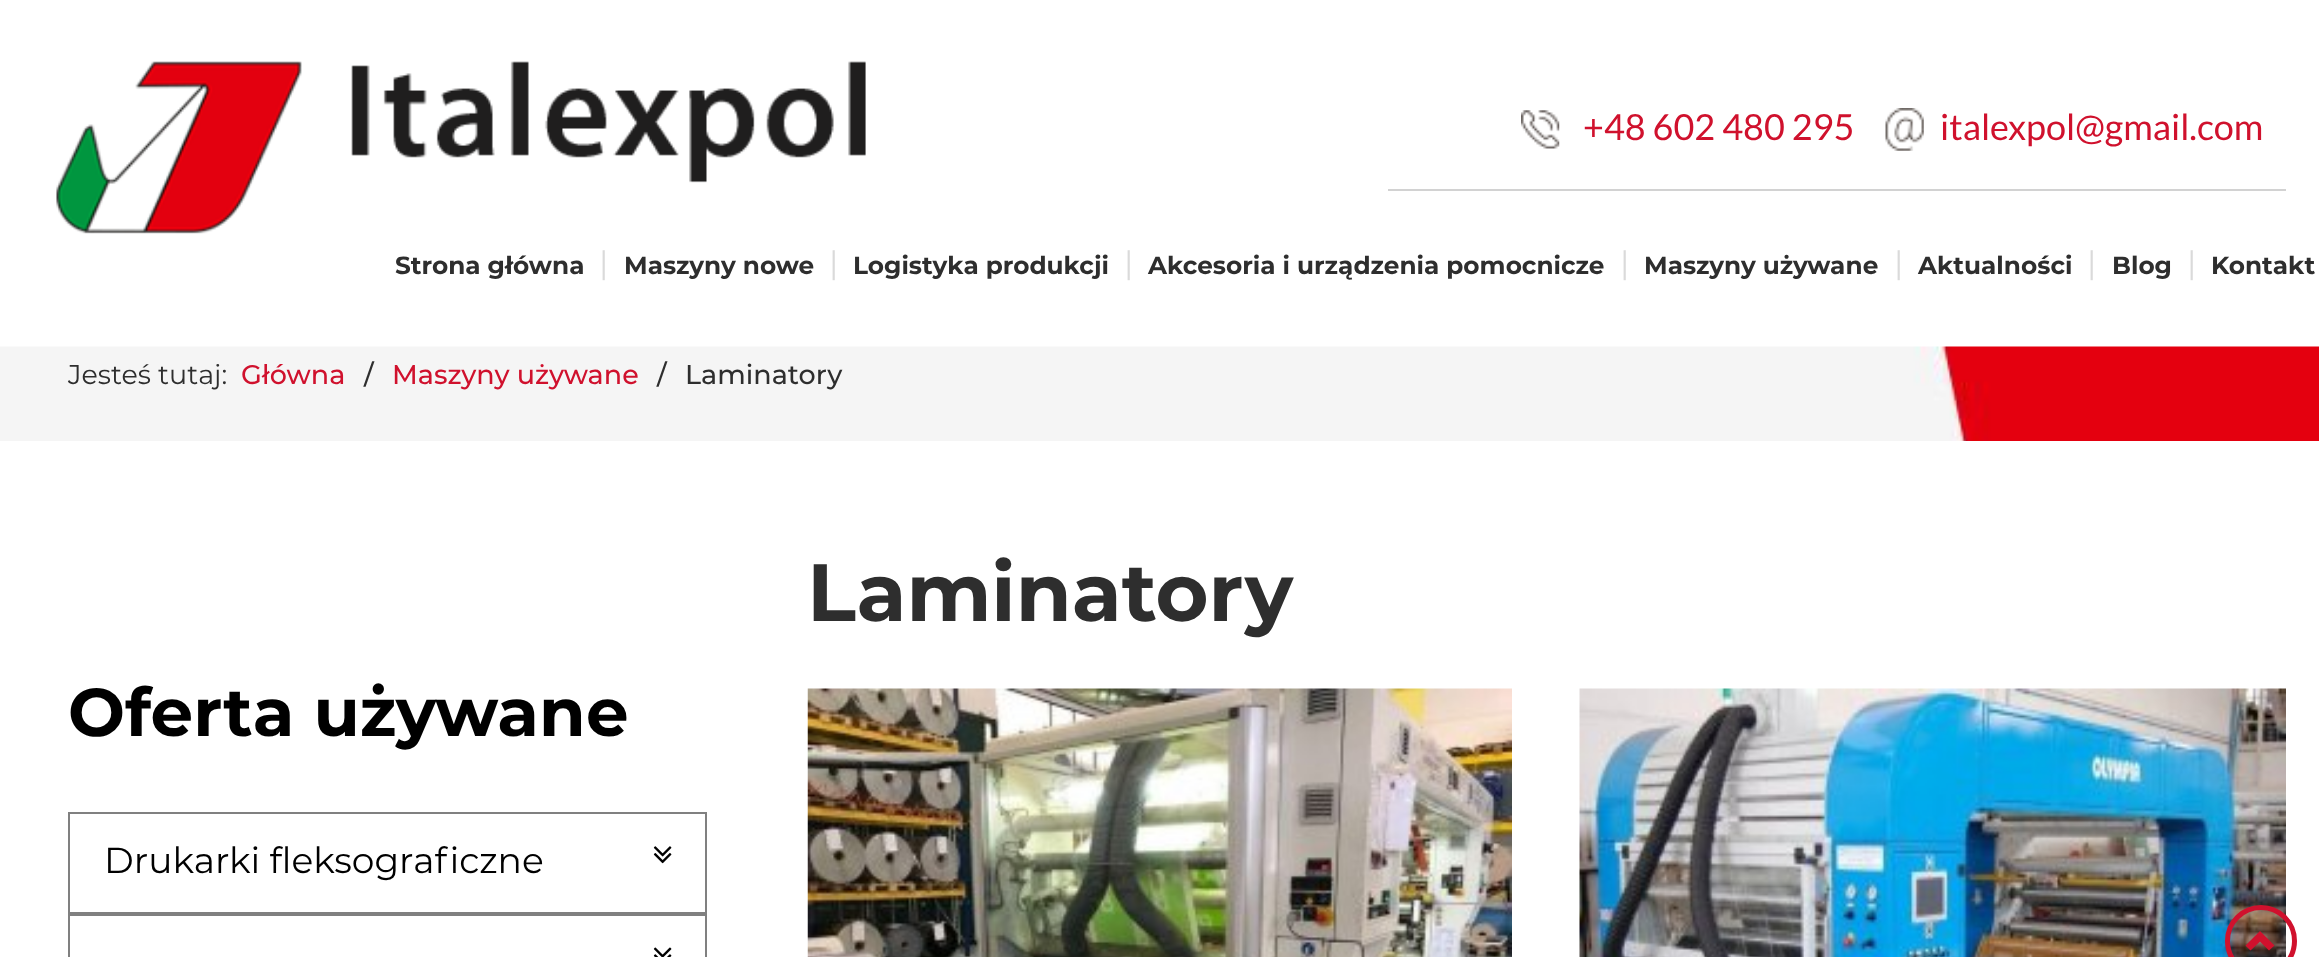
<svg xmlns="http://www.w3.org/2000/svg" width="2319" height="957">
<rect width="100%" height="100%" fill="#fff"/>
<image x="56" y="61" width="810" height="173" href="media/1.png"/>
<rect x="1388" y="189" width="898" height="2" fill="#d2d2d2"/>
<image x="1521" y="110" width="39" height="39" href="media/2.png"/>
<text x="1583" y="140" style="font-family:Lato;font-size:36px;fill:#d0112d">+48 602 480 295</text>
<image x="1885" y="108" width="39" height="43" href="media/3.png"/>
<text x="1940" y="140" style="font-family:Lato;font-size:36px;fill:#d0112d">italexpol@gmail.com</text>
<text x="395" y="274" style="font-family:Montserrat;font-size:24.75px;font-weight:bold;fill:#2e2e2e">Strona główna</text>
<text x="599" y="274" style="font-family:Montserrat;font-size:32px;fill:#dadada">|</text>
<text x="624" y="274" style="font-family:Montserrat;font-size:24.75px;font-weight:bold;fill:#2e2e2e">Maszyny nowe</text>
<text x="829" y="274" style="font-family:Montserrat;font-size:32px;fill:#dadada">|</text>
<text x="853" y="274" style="font-family:Montserrat;font-size:24.75px;font-weight:bold;fill:#2e2e2e">Logistyka produkcji</text>
<text x="1124" y="274" style="font-family:Montserrat;font-size:32px;fill:#dadada">|</text>
<text x="1148" y="274" style="font-family:Montserrat;font-size:24.75px;font-weight:bold;fill:#2e2e2e">Akcesoria i urządzenia pomocnicze</text>
<text x="1620" y="274" style="font-family:Montserrat;font-size:32px;fill:#dadada">|</text>
<text x="1644" y="274" style="font-family:Montserrat;font-size:24.75px;font-weight:bold;fill:#2e2e2e">Maszyny używane</text>
<text x="1894" y="274" style="font-family:Montserrat;font-size:32px;fill:#dadada">|</text>
<text x="1918" y="274" style="font-family:Montserrat;font-size:24.75px;font-weight:bold;fill:#2e2e2e">Aktualności</text>
<text x="2087" y="274" style="font-family:Montserrat;font-size:32px;fill:#dadada">|</text>
<text x="2112" y="274" style="font-family:Montserrat;font-size:24.75px;font-weight:bold;fill:#2e2e2e">Blog</text>
<text x="2187" y="274" style="font-family:Montserrat;font-size:32px;fill:#dadada">|</text>
<text x="2211" y="274" style="font-family:Montserrat;font-size:24.75px;font-weight:bold;fill:#2e2e2e">Kontakt</text>
<image x="0" y="346" width="2319" height="95" href="media/4.png"/>
<text x="68" y="384" style="font-family:Montserrat;font-size:27px;fill:#2e2e2e">Jesteś tutaj:</text>
<text x="241" y="384" style="font-family:Montserrat;font-size:27px;font-weight:500;fill:#d0112d">Główna</text>
<text x="364" y="384" style="font-family:Montserrat;font-size:27px;font-weight:500;fill:#2e2e2e">/</text>
<text x="392" y="384" style="font-family:Montserrat;font-size:27px;font-weight:500;fill:#d0112d">Maszyny używane</text>
<text x="657" y="384" style="font-family:Montserrat;font-size:27px;font-weight:500;fill:#2e2e2e">/</text>
<text x="685" y="384" style="font-family:Montserrat;font-size:27px;font-weight:500;fill:#2e2e2e">Laminatory</text>
<text x="807" y="621" style="font-family:Montserrat;font-size:81px;font-weight:bold;fill:#2e2e2e">Laminatory</text>
<image x="807" y="688" width="705" height="269" href="media/5.png"/>
<image x="1579" y="688" width="707" height="269" href="media/6.png"/>
<text x="68" y="736" style="font-family:Montserrat;font-size:67.5px;font-weight:bold;fill:#000">Oferta używane</text>
<rect x="69" y="813" width="637" height="100" fill="none" stroke="#808080" stroke-width="2"/>
<text x="104" y="873" style="font-family:Montserrat;font-size:36px;fill:#000">Drukarki fleksograficzne</text>
<image x="653" y="846" width="19" height="18" href="media/7.png"/>
<rect x="69" y="915" width="637" height="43" fill="none" stroke="#808080" stroke-width="2"/>
<image x="653" y="947" width="19" height="10" href="media/8.png"/>
<circle cx="2261" cy="941" r="33.5" fill="none" stroke="#d0112d" stroke-width="5"/>
<path d="M2274.5 945.5l-5.5 5l-9-9l-9.5 9l-5-5l14.5-14.5z" fill="#d0112d"/>
</svg>
